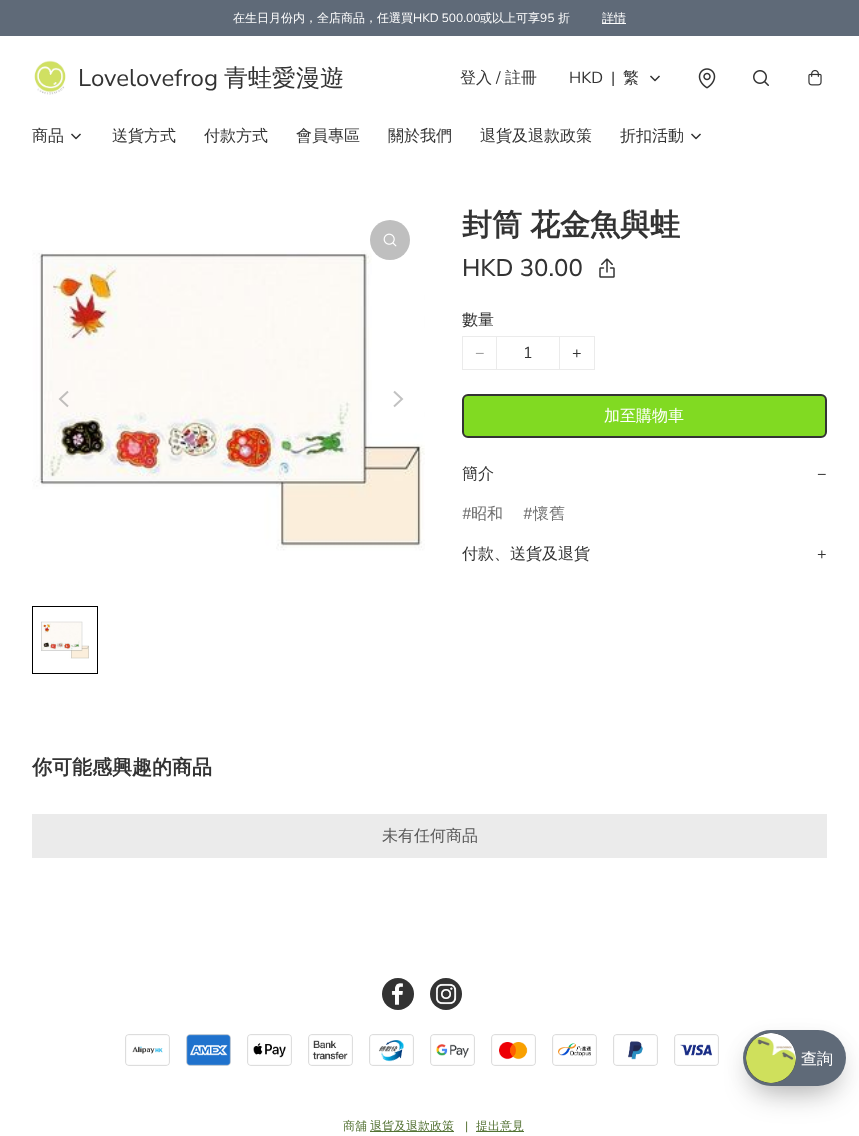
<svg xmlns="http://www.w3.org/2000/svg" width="859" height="1136">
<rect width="100%" height="100%" fill="#fff"/>
<rect width="859" height="36" fill="#5f6a78"/>
<text x="233" y="22" style="font-family:WenQuanYi Zen Hei;font-size:12px;font-weight:500;fill:#fff">在生日月份内，全店商品，任選買</text>
<text x="413" y="22" style="font-family:Nunito Sans;font-size:12px;fill:#fff">HKD 500.00</text>
<text x="480" y="22" style="font-family:WenQuanYi Zen Hei;font-size:12px;font-weight:500;fill:#fff">或以上可享</text>
<text x="540" y="22" style="font-family:Nunito Sans;font-size:12px;fill:#fff">95</text>
<text x="558" y="22" style="font-family:WenQuanYi Zen Hei;font-size:12px;font-weight:500;fill:#fff">折</text>
<rect x="602" y="23" width="24" height="1" fill="#fff"/>
<text x="602" y="22" style="font-family:WenQuanYi Zen Hei;font-size:12px;font-weight:500;fill:#fff">詳情</text>
<image x="34" y="60" width="32" height="35" href="media/1.png"/>
<text x="78" y="86" style="font-family:Nunito Sans;font-size:24px;fill:#333">Lovelovefrog</text>
<text x="224" y="86" style="font-family:WenQuanYi Zen Hei;font-size:24px;font-weight:500;fill:#333">青蛙愛漫遊</text>
<text x="460" y="83" style="font-family:WenQuanYi Zen Hei;font-size:16px;font-weight:500;fill:#333">登入</text>
<text x="496" y="83" style="font-family:Nunito Sans;font-size:16px;fill:#333">/</text>
<text x="505" y="83" style="font-family:WenQuanYi Zen Hei;font-size:16px;font-weight:500;fill:#333">註冊</text>
<text x="569" y="83" style="font-family:Nunito Sans;font-size:16px;fill:#333">HKD</text>
<text x="611" y="83" style="font-family:Nunito Sans;font-size:16px;fill:#333">|</text>
<text x="623" y="83" style="font-family:WenQuanYi Zen Hei;font-size:16px;font-weight:500;fill:#333">繁</text>
<path d="M651 76.5l4 4l4-4" fill="none" stroke="#333" stroke-width="1.5" stroke-linecap="square" stroke-linejoin="round"/>
<image x="698" y="68" width="18" height="21" href="media/2.png"/>
<image x="753" y="70" width="16" height="16" href="media/3.png"/>
<image x="808" y="69" width="14" height="17" href="media/4.png"/>
<text x="32" y="141" style="font-family:WenQuanYi Zen Hei;font-size:16px;font-weight:500;fill:#333">商品</text>
<path d="M72 134.5l4 4l4-4" fill="none" stroke="#333" stroke-width="1.5" stroke-linecap="square" stroke-linejoin="round"/>
<text x="112" y="141" style="font-family:WenQuanYi Zen Hei;font-size:16px;font-weight:500;fill:#333">送貨方式</text>
<text x="204" y="141" style="font-family:WenQuanYi Zen Hei;font-size:16px;font-weight:500;fill:#333">付款方式</text>
<text x="296" y="141" style="font-family:WenQuanYi Zen Hei;font-size:16px;font-weight:500;fill:#333">會員專區</text>
<text x="388" y="141" style="font-family:WenQuanYi Zen Hei;font-size:16px;font-weight:500;fill:#333">關於我們</text>
<text x="480" y="141" style="font-family:WenQuanYi Zen Hei;font-size:16px;font-weight:500;fill:#333">退貨及退款政策</text>
<text x="620" y="141" style="font-family:WenQuanYi Zen Hei;font-size:16px;font-weight:500;fill:#333">折扣活動</text>
<path d="M692 134.5l4 4l4-4" fill="none" stroke="#333" stroke-width="1.5" stroke-linecap="square" stroke-linejoin="round"/>
<image x="32" y="250" width="393" height="301" href="media/6.png"/>
<circle cx="390" cy="240" r="20" fill="#bfbfbf"/>
<image x="383" y="233" width="14" height="14" href="media/5.png"/>
<path d="M68 391.5l-8 7.5l8 7.5" fill="none" stroke="#c0bebc" stroke-width="2"/>
<path d="M394 391.5l8 7.5l-8 7.5" fill="none" stroke="#c2c2c2" stroke-width="2"/>
<rect x="32.5" y="606.5" width="65" height="67" fill="none" stroke="#000"/>
<image x="41" y="621" width="48" height="38" href="media/7.png"/>
<text x="462" y="235" word-spacing="-1" style="font-family:WenQuanYi Zen Hei;font-size:30px;font-weight:bold;fill:#333">封筒 花金魚與蛙</text>
<text x="462" y="276" style="font-family:Nunito Sans;font-size:24px;font-weight:500;fill:#333">HKD 30.00</text>
<image x="599" y="258" width="16" height="20" href="media/8.png"/>
<text x="462" y="325" style="font-family:WenQuanYi Zen Hei;font-size:16px;font-weight:500;fill:#333">數量</text>
<rect x="462.5" y="336.5" width="132" height="33" fill="none" stroke="#ebebeb"/>
<text x="475" y="358" style="font-family:Nunito Sans;font-size:16px;fill:#999">−</text>
<rect x="559" y="337" width="1" height="32" fill="#ebebeb"/>
<rect x="496" y="337" width="1" height="32" fill="#ebebeb"/>
<text x="523" y="358" style="font-family:Nunito Sans;font-size:16px;fill:#333">1</text>
<text x="572" y="358" style="font-family:Nunito Sans;font-size:16px;fill:#333">+</text>
<rect x="463" y="395" width="363" height="42" rx="5" fill="#81da22" stroke="#333" stroke-width="2"/>
<text x="604" y="421" style="font-family:WenQuanYi Zen Hei;font-size:16px;font-weight:500;fill:#fff">加至購物車</text>
<text x="462" y="479" style="font-family:WenQuanYi Zen Hei;font-size:16px;font-weight:500;fill:#333">簡介</text>
<text x="817" y="479" style="font-family:Nunito Sans;font-size:16px;fill:#333">−</text>
<text x="462" y="519" style="font-family:Nunito Sans;font-size:16px;fill:#707070">#</text>
<text x="471" y="519" style="font-family:WenQuanYi Zen Hei;font-size:16px;font-weight:500;fill:#707070">昭和</text>
<text x="523" y="519" style="font-family:Nunito Sans;font-size:16px;fill:#707070">#</text>
<text x="533" y="519" style="font-family:WenQuanYi Zen Hei;font-size:16px;font-weight:500;fill:#707070">懷舊</text>
<text x="462" y="559" style="font-family:WenQuanYi Zen Hei;font-size:16px;font-weight:500;fill:#333">付款、送貨及退貨</text>
<text x="817" y="559" style="font-family:Nunito Sans;font-size:16px;fill:#333">+</text>
<text x="32" y="774" style="font-family:WenQuanYi Zen Hei;font-size:20px;font-weight:bold;fill:#333">你可能感興趣的商品</text>
<rect x="32" y="814" width="795" height="44" fill="#ebebeb"/>
<text x="382" y="841" style="font-family:WenQuanYi Zen Hei;font-size:16px;font-weight:500;fill:#585858">未有任何商品</text>
<circle cx="398" cy="994" r="16" fill="#333"/>
<image x="391" y="983" width="12" height="22" href="media/9.png"/>
<circle cx="446" cy="994" r="16" fill="#333"/>
<image x="435" y="983" width="22" height="22" href="media/10.png"/>
<image x="125" y="1034" width="45" height="32" href="media/11.png"/>
<image x="186" y="1034" width="45" height="32" href="media/12.png"/>
<image x="247" y="1034" width="45" height="32" href="media/13.png"/>
<image x="308" y="1034" width="45" height="32" href="media/14.png"/>
<image x="369" y="1034" width="45" height="32" href="media/15.png"/>
<image x="430" y="1034" width="45" height="32" href="media/16.png"/>
<image x="491" y="1034" width="45" height="32" href="media/17.png"/>
<image x="552" y="1034" width="45" height="32" href="media/18.png"/>
<image x="613" y="1034" width="45" height="32" href="media/19.png"/>
<image x="674" y="1034" width="45" height="32" href="media/20.png"/>
<text x="343" y="1130" style="font-family:WenQuanYi Zen Hei;font-size:12px;font-weight:500;fill:#557335">商舖</text>
<rect x="370" y="1131" width="84" height="1" fill="#557335"/>
<text x="370" y="1130" style="font-family:WenQuanYi Zen Hei;font-size:12px;font-weight:500;fill:#557335">退貨及退款政策</text>
<text x="465" y="1130" style="font-family:Nunito Sans;font-size:12px;fill:#557335">|</text>
<rect x="476" y="1131" width="48" height="1" fill="#557335"/>
<text x="476" y="1130" style="font-family:WenQuanYi Zen Hei;font-size:12px;font-weight:500;fill:#557335">提出意見</text>
<rect x="753" y="1055" width="83" height="36" rx="18" fill="#0000004d" filter="blur(15px)"/>
<rect x="743" y="1035" width="103" height="56" rx="28" fill="#0000000d" filter="blur(10px)"/>
<rect x="743" y="1030" width="103" height="56" rx="28" fill="#5f6a78"/>
<image x="746" y="1033" width="50" height="50" href="media/21.png"/>
<text x="801" y="1064" style="font-family:WenQuanYi Zen Hei;font-size:16px;font-weight:500;fill:#fff">查詢</text>
</svg>
